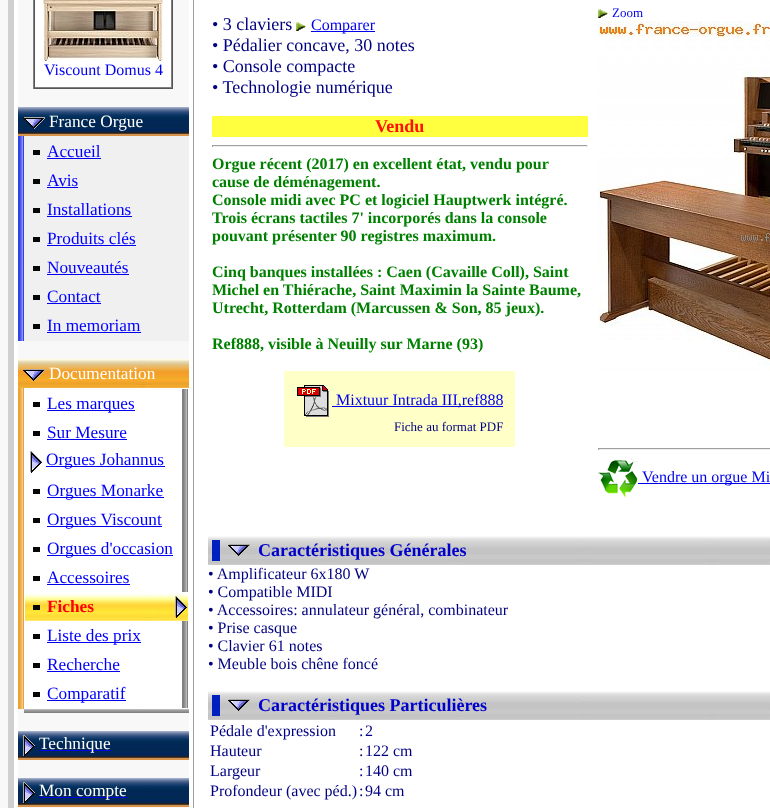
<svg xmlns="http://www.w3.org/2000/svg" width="770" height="808">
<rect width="100%" height="100%" fill="#f8f8f8"/>
<rect x="8" width="6" height="808" fill="#d0d0d0"/>
<rect x="14" width="756" height="808" fill="#fff"/>
<rect x="18" width="171" height="808" fill="#f8f8f8"/>
<rect x="172" width="1" height="89" fill="#555"/>
<rect x="33" y="88" width="140" height="1" fill="#555"/>
<rect x="33" width="1" height="89" fill="#808080"/>
<rect x="35" width="136" height="87" fill="#fff"/>
<rect x="171" width="1" height="88" fill="#808080"/>
<rect x="34" y="87" width="138" height="1" fill="#808080"/>
<rect x="34" width="1" height="88" fill="#555"/>
<image x="43" y="0" width="120" height="61" href="media/1.png"/>
<text x="44" y="75" style="font-family:Liberation Serif;font-size:16px;fill:#00e">Viscount Domus 4</text>
<image x="18" y="107" width="171" height="29" href="media/2.png"/>
<image x="23" y="117" width="22" height="12" href="media/3.png"/>
<text x="49" y="127" style="font-family:Liberation Serif;font-size:17.25px;fill:#fff">France Orgue</text>
<image x="18" y="136" width="6" height="205" href="media/4.png"/>
<rect x="24" y="136" width="165" height="205" fill="#f0f0f0"/>
<rect x="33" y="150" width="7" height="5" fill="#060606"/>
<text x="47" y="157" style="font-family:Liberation Serif;font-size:17.25px;fill:#00f">Accueil</text>
<rect x="47" y="158" width="54" height="1" fill="#00e"/>
<rect x="33" y="179" width="7" height="5" fill="#060606"/>
<text x="47" y="186" style="font-family:Liberation Serif;font-size:17.25px;fill:#00f">Avis</text>
<rect x="47" y="187" width="31" height="1" fill="#00e"/>
<rect x="33" y="208" width="7" height="5" fill="#060606"/>
<text x="47" y="215" style="font-family:Liberation Serif;font-size:17.25px;fill:#00f">Installations</text>
<rect x="47" y="216" width="85" height="1" fill="#00e"/>
<rect x="33" y="237" width="7" height="5" fill="#060606"/>
<text x="47" y="244" style="font-family:Liberation Serif;font-size:17.25px;fill:#00f">Produits clés</text>
<rect x="47" y="245" width="89" height="1" fill="#00e"/>
<rect x="33" y="266" width="7" height="5" fill="#060606"/>
<text x="47" y="273" style="font-family:Liberation Serif;font-size:17.25px;fill:#00f">Nouveautés</text>
<rect x="47" y="274" width="82" height="1" fill="#00e"/>
<rect x="33" y="295" width="7" height="5" fill="#060606"/>
<text x="47" y="302" style="font-family:Liberation Serif;font-size:17.25px;fill:#00f">Contact</text>
<rect x="47" y="303" width="54" height="1" fill="#00e"/>
<rect x="33" y="324" width="7" height="5" fill="#060606"/>
<text x="47" y="331" style="font-family:Liberation Serif;font-size:17.25px;fill:#00f">In memoriam</text>
<rect x="47" y="332" width="94" height="1" fill="#00e"/>
<image x="18" y="359" width="171" height="29" href="media/5.png"/>
<image x="23" y="369" width="22" height="12" href="media/6.png"/>
<text x="49" y="379" style="font-family:Liberation Serif;font-size:17.25px;fill:#fff">Documentation</text>
<image x="18" y="388" width="6" height="321" href="media/7.png"/>
<rect x="24" y="388" width="165" height="321" fill="#fff"/>
<rect x="33" y="402" width="7" height="5" fill="#060606"/>
<rect x="47" y="410" width="88" height="1" fill="#00e"/>
<text x="47" y="409" style="font-family:Liberation Serif;font-size:17.25px;fill:#00f">Les marques</text>
<image x="182" y="389" width="6" height="29" href="media/8.png"/>
<rect x="33" y="431" width="7" height="5" fill="#060606"/>
<text x="47" y="438" style="font-family:Liberation Serif;font-size:17.25px;fill:#00f">Sur Mesure</text>
<rect x="47" y="439" width="80" height="1" fill="#00e"/>
<image x="182" y="418" width="6" height="29" href="media/8.png"/>
<image x="30" y="451" width="12" height="22" href="media/9.png"/>
<rect x="46" y="466" width="119" height="1" fill="#00e"/>
<text x="46" y="465" style="font-family:Liberation Serif;font-size:17.25px;fill:#00f">Orgues Johannus</text>
<image x="182" y="447" width="6" height="29" href="media/8.png"/>
<rect x="33" y="489" width="7" height="5" fill="#060606"/>
<rect x="47" y="497" width="117" height="1" fill="#00e"/>
<text x="47" y="496" style="font-family:Liberation Serif;font-size:17.25px;fill:#00f">Orgues Monarke</text>
<image x="182" y="476" width="6" height="29" href="media/8.png"/>
<rect x="33" y="518" width="7" height="5" fill="#060606"/>
<rect x="47" y="526" width="115" height="1" fill="#00e"/>
<text x="47" y="525" style="font-family:Liberation Serif;font-size:17.25px;fill:#00f">Orgues Viscount</text>
<image x="182" y="505" width="6" height="29" href="media/8.png"/>
<rect x="33" y="547" width="7" height="5" fill="#060606"/>
<rect x="47" y="555" width="126" height="1" fill="#00e"/>
<text x="47" y="554" style="font-family:Liberation Serif;font-size:17.25px;fill:#00f">Orgues d'occasion</text>
<image x="182" y="534" width="6" height="29" href="media/8.png"/>
<rect x="33" y="576" width="7" height="5" fill="#060606"/>
<text x="47" y="583" style="font-family:Liberation Serif;font-size:17.25px;fill:#00f">Accessoires</text>
<rect x="47" y="584" width="83" height="1" fill="#00e"/>
<image x="182" y="563" width="6" height="29" href="media/8.png"/>
<image x="25" y="593" width="163" height="28" href="media/10.png"/>
<rect x="33" y="605" width="7" height="5" fill="#060606"/>
<text x="47" y="612" style="font-family:Liberation Serif;font-size:17.25px;font-weight:bold;fill:#f00">Fiches</text>
<image x="175" y="596" width="12" height="22" href="media/11.png"/>
<rect x="33" y="634" width="7" height="5" fill="#060606"/>
<rect x="47" y="642" width="94" height="1" fill="#00e"/>
<text x="47" y="641" style="font-family:Liberation Serif;font-size:17.25px;fill:#00f">Liste des prix</text>
<image x="182" y="621" width="6" height="29" href="media/8.png"/>
<rect x="33" y="663" width="7" height="5" fill="#060606"/>
<text x="47" y="670" style="font-family:Liberation Serif;font-size:17.25px;fill:#00f">Recherche</text>
<rect x="47" y="671" width="73" height="1" fill="#00e"/>
<image x="182" y="650" width="6" height="29" href="media/8.png"/>
<rect x="33" y="692" width="7" height="5" fill="#060606"/>
<rect x="47" y="700" width="79" height="1" fill="#00e"/>
<text x="47" y="699" style="font-family:Liberation Serif;font-size:17.25px;fill:#00f">Comparatif</text>
<image x="182" y="679" width="6" height="29" href="media/8.png"/>
<image x="24" y="709" width="165" height="4" href="media/12.png"/>
<image x="18" y="731" width="171" height="29" href="media/2.png"/>
<image x="23" y="735" width="12" height="22" href="media/13.png"/>
<rect x="39" y="750" width="72" height="1" fill="#00e"/>
<text x="39" y="749" style="font-family:Liberation Serif;font-size:17.25px;fill:#fff">Technique</text>
<image x="18" y="778" width="171" height="29" href="media/2.png"/>
<image x="23" y="782" width="12" height="22" href="media/13.png"/>
<rect x="39" y="797" width="88" height="1" fill="#00e"/>
<text x="39" y="796" style="font-family:Liberation Serif;font-size:17.25px;fill:#fff">Mon compte</text>
<rect x="193" width="1" height="808" fill="#a0a0a0"/>
<text x="212" y="30" style="font-family:Liberation Serif;font-size:18px;fill:#000080">• 3 claviers</text>
<image x="296" y="22" width="10" height="9" href="media/14.png"/>
<rect x="311" y="31" width="64" height="1" fill="#00e"/>
<text x="311" y="30" style="font-family:Liberation Serif;font-size:16px;fill:#00e">Comparer</text>
<text x="212" y="51" style="font-family:Liberation Serif;font-size:18px;fill:#000080">• Pédalier concave, 30 notes</text>
<text x="212" y="72" style="font-family:Liberation Serif;font-size:18px;fill:#000080">• Console compacte</text>
<text x="212" y="93" style="font-family:Liberation Serif;font-size:18px;fill:#000080">• Technologie numérique</text>
<rect x="212" y="116" width="376" height="21" fill="#ffff40"/>
<text x="375" y="132" style="font-family:Liberation Serif;font-size:18px;font-weight:bold;fill:#ff1000">Vendu</text>
<rect x="212" y="145" width="376" height="1" fill="#9f9f9f"/>
<rect x="587" y="145" width="1" height="2" fill="#eee"/>
<rect x="212" y="146" width="376" height="1" fill="#eee"/>
<rect x="212" y="145" width="1" height="2" fill="#9f9f9f"/>
<text x="212" y="169" style="font-family:Liberation Serif;font-size:16px;font-weight:bold;fill:#008000">Orgue récent (2017) en excellent état, vendu pour</text>
<text x="212" y="187" style="font-family:Liberation Serif;font-size:16px;font-weight:bold;fill:#008000">cause de déménagement.</text>
<text x="212" y="205" style="font-family:Liberation Serif;font-size:16px;font-weight:bold;fill:#008000">Console midi avec PC et logiciel Hauptwerk intégré.</text>
<text x="212" y="223" style="font-family:Liberation Serif;font-size:16px;font-weight:bold;fill:#008000">Trois écrans tactiles 7' incorporés dans la console</text>
<text x="212" y="241" style="font-family:Liberation Serif;font-size:16px;font-weight:bold;fill:#008000">pouvant présenter 90 registres maximum.</text>
<text x="212" y="277" style="font-family:Liberation Serif;font-size:16px;font-weight:bold;fill:#008000">Cinq banques installées : Caen (Cavaille Coll), Saint</text>
<text x="212" y="295" style="font-family:Liberation Serif;font-size:16px;font-weight:bold;fill:#008000">Michel en Thiérache, Saint Maximin la Sainte Baume,</text>
<text x="212" y="313" style="font-family:Liberation Serif;font-size:16px;font-weight:bold;fill:#008000">Utrecht, Rotterdam (Marcussen &amp; Son, 85 jeux).</text>
<text x="212" y="349" style="font-family:Liberation Serif;font-size:16px;font-weight:bold;fill:#008000">Ref888, visible à Neuilly sur Marne (93)</text>
<rect x="284" y="371" width="231" height="76" fill="#ffffc8"/>
<image x="297" y="385" width="32" height="32" href="media/15.png"/>
<rect x="332" y="406" width="171" height="1" fill="#00e"/>
<text x="336" y="405" style="font-family:Liberation Serif;font-size:16px;fill:#00e">Mixtuur Intrada III,ref888</text>
<text x="394" y="431" style="font-family:Liberation Serif;font-size:13px;fill:#000080">Fiche au format PDF</text>
<image x="598" y="9" width="10" height="9" href="media/14.png"/>
<text x="612" y="17" style="font-family:Liberation Serif;font-size:13px;fill:#00e">Zoom</text>
<image x="598" y="21" width="172" height="349" href="media/16.png"/>
<rect x="598" y="448" width="172" height="1" fill="#9f9f9f"/>
<rect x="598" y="449" width="172" height="1" fill="#eee"/>
<rect x="598" y="448" width="1" height="2" fill="#9f9f9f"/>
<image x="598" y="458" width="40" height="40" href="media/17.png"/>
<rect x="638" y="483" width="132" height="1" fill="#00e"/>
<text x="642" y="482" style="font-family:Liberation Serif;font-size:16px;fill:#00e">Vendre un orgue Mi</text>
<image x="208" y="536" width="562" height="29" href="media/18.png"/>
<rect x="212" y="540" width="8" height="21" fill="#0020c0"/>
<image x="228" y="544" width="22" height="12" href="media/19.png"/>
<text x="258" y="556" style="font-family:Liberation Serif;font-size:18px;font-weight:bold;fill:#0000cd">Caractéristiques Générales</text>
<text x="208" y="579" style="font-family:Liberation Serif;font-size:16px;fill:#000080">• Amplificateur 6x180 W</text>
<text x="208" y="597" style="font-family:Liberation Serif;font-size:16px;fill:#000080">• Compatible MIDI</text>
<text x="208" y="615" style="font-family:Liberation Serif;font-size:16px;fill:#000080">• Accessoires: annulateur général, combinateur</text>
<text x="208" y="633" style="font-family:Liberation Serif;font-size:16px;fill:#000080">• Prise casque</text>
<text x="208" y="651" style="font-family:Liberation Serif;font-size:16px;fill:#000080">• Clavier 61 notes</text>
<text x="208" y="669" style="font-family:Liberation Serif;font-size:16px;fill:#000080">• Meuble bois chêne foncé</text>
<image x="208" y="691" width="562" height="29" href="media/18.png"/>
<rect x="212" y="695" width="8" height="21" fill="#0020c0"/>
<image x="228" y="699" width="22" height="12" href="media/19.png"/>
<text x="258" y="711" style="font-family:Liberation Serif;font-size:18px;font-weight:bold;fill:#0000cd">Caractéristiques Particulières</text>
<text x="210" y="736" style="font-family:Liberation Serif;font-size:16px;fill:#000080">Pédale d'expression</text>
<text x="359" y="736" style="font-family:Liberation Serif;font-size:16px;fill:#000080">:</text>
<text x="365" y="736" style="font-family:Liberation Serif;font-size:16px;fill:#000080">2</text>
<text x="210" y="756" style="font-family:Liberation Serif;font-size:16px;fill:#000080">Hauteur</text>
<text x="359" y="756" style="font-family:Liberation Serif;font-size:16px;fill:#000080">:</text>
<text x="365" y="756" style="font-family:Liberation Serif;font-size:16px;fill:#000080">122 cm</text>
<text x="210" y="776" style="font-family:Liberation Serif;font-size:16px;fill:#000080">Largeur</text>
<text x="359" y="776" style="font-family:Liberation Serif;font-size:16px;fill:#000080">:</text>
<text x="365" y="776" style="font-family:Liberation Serif;font-size:16px;fill:#000080">140 cm</text>
<text x="210" y="796" style="font-family:Liberation Serif;font-size:16px;fill:#000080">Profondeur (avec péd.)</text>
<text x="359" y="796" style="font-family:Liberation Serif;font-size:16px;fill:#000080">:</text>
<text x="365" y="796" style="font-family:Liberation Serif;font-size:16px;fill:#000080">94 cm</text>
</svg>
